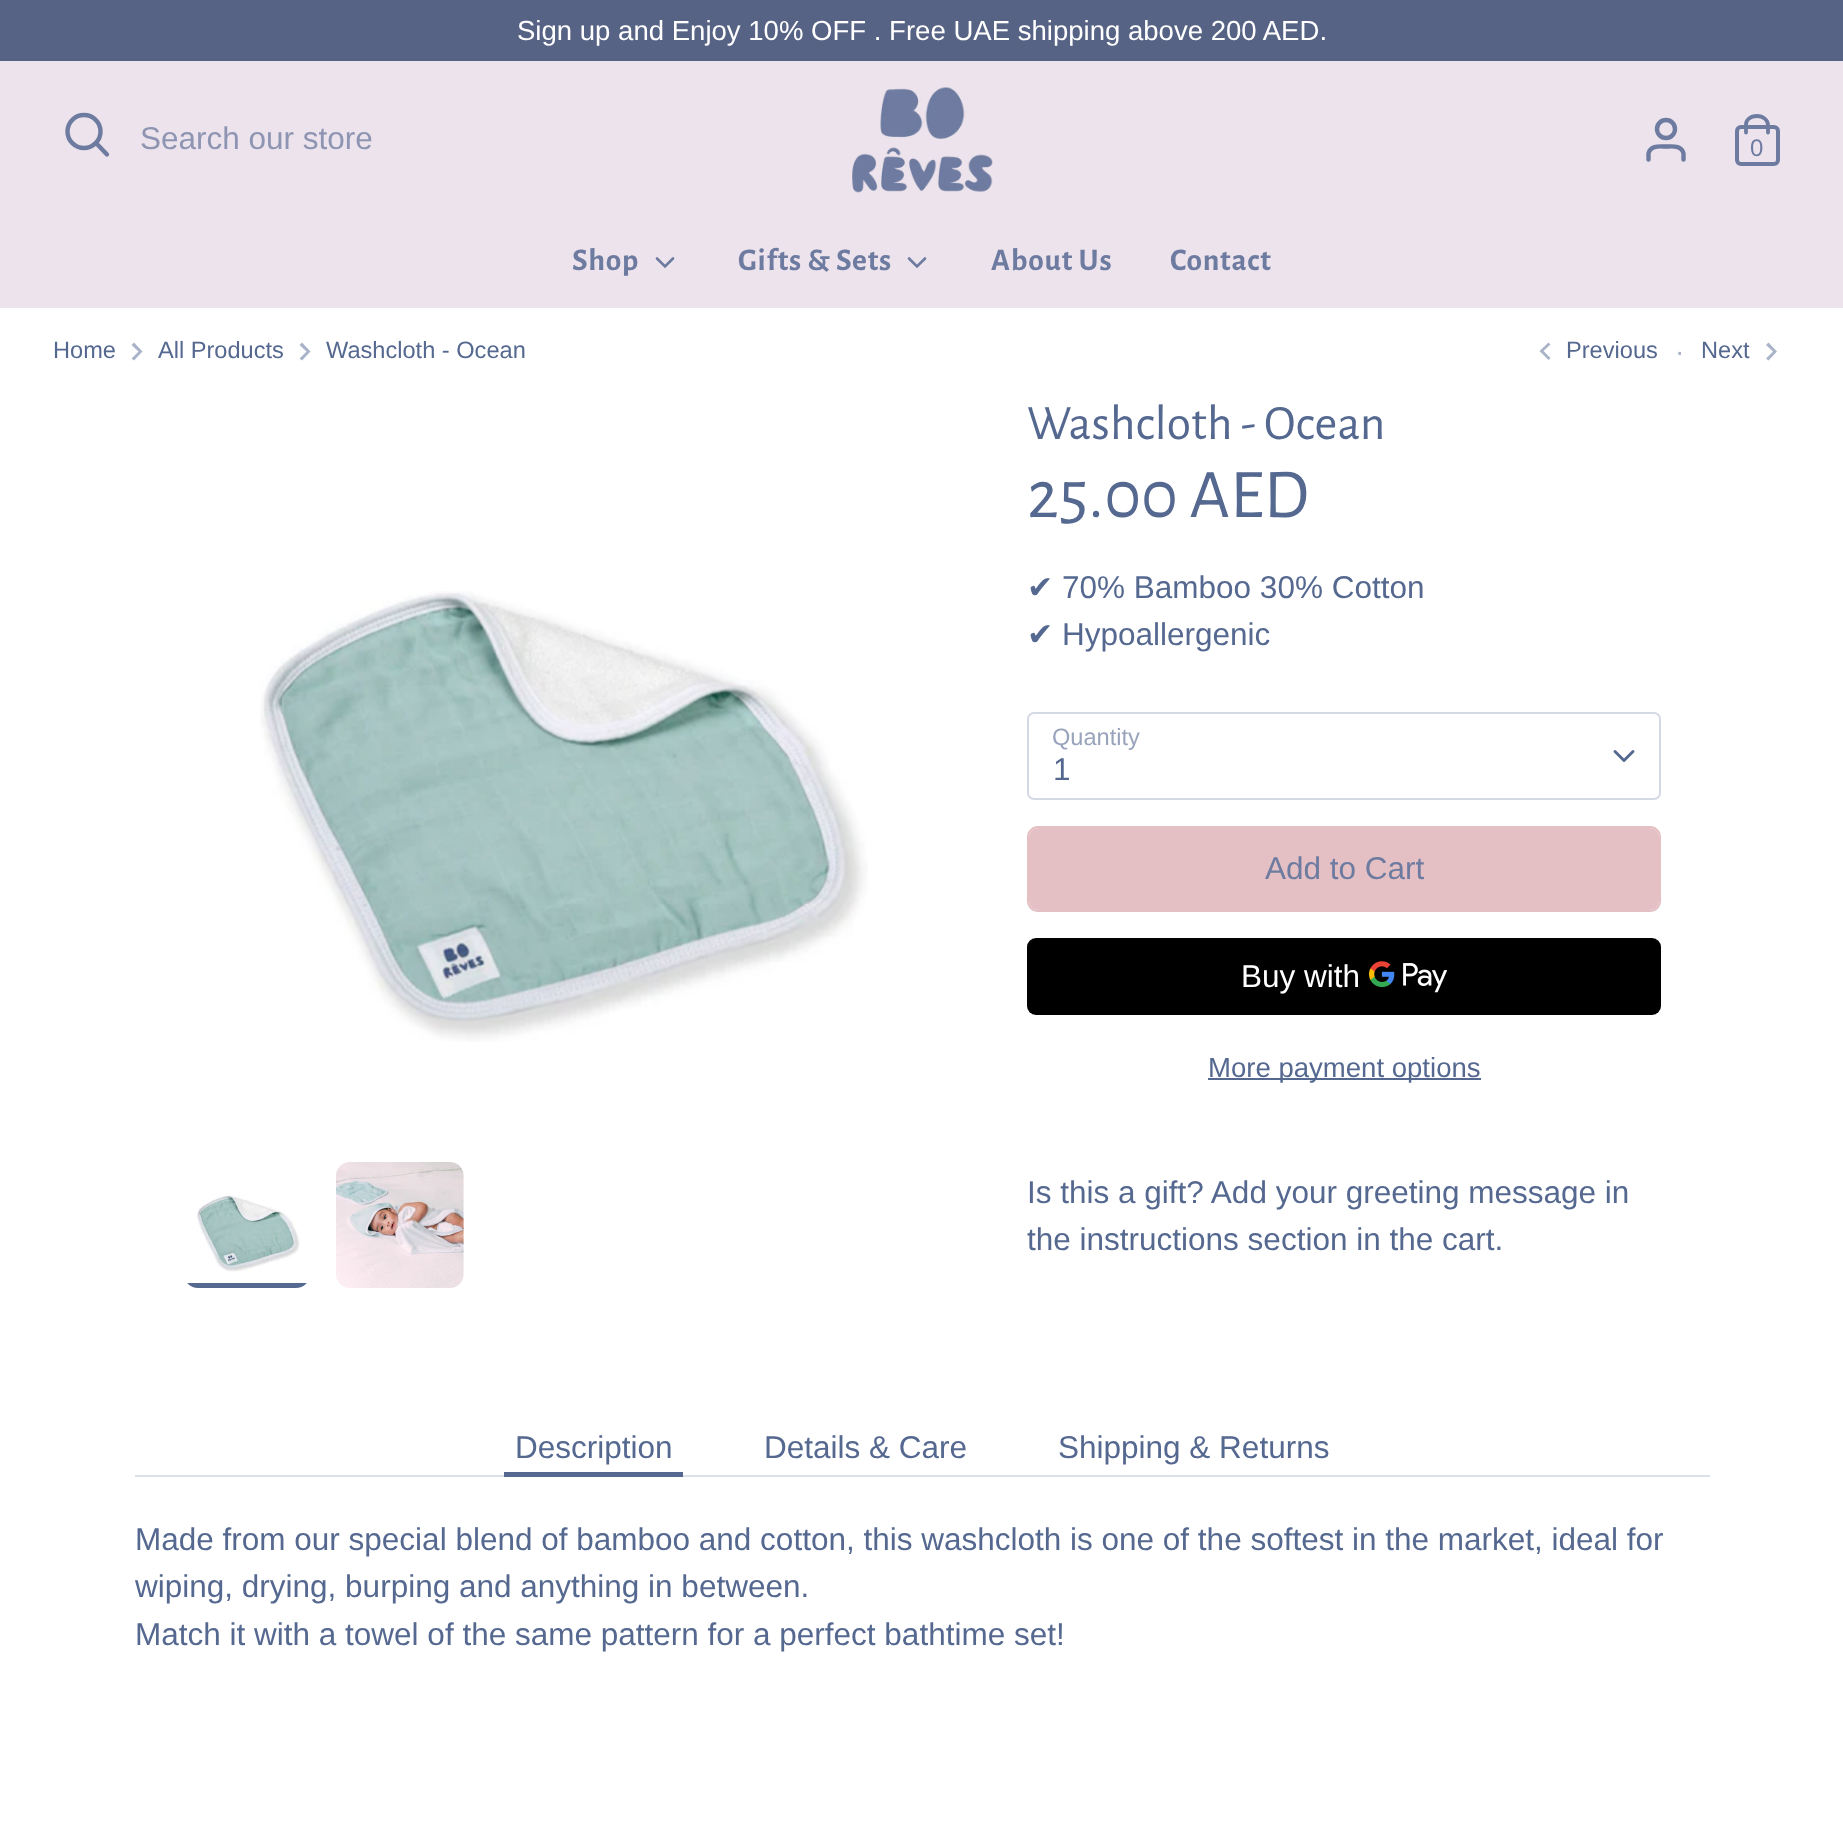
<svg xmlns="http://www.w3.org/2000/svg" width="1843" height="1828">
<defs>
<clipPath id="clip1"><rect x="184" y="1162" width="126" height="126" rx="14"/></clipPath>
</defs>
<rect width="100%" height="100%" fill="#fff"/>
<rect width="1843" height="61" fill="#576384"/>
<text x="517" y="40" style="font-family:Liberation Sans;font-size:27.55px;fill:#fff">Sign up and Enjoy 10% OFF . Free UAE shipping above 200 AED.</text>
<rect y="61" width="1843" height="247" fill="#ece3ec"/>
<circle cx="84" cy="131.5" r="16.5" fill="none" stroke="#6e7ba0" stroke-width="4.4"/>
<path d="M107 154.5l-11-11.5" fill="none" stroke="#6e7ba0" stroke-width="4.4" stroke-linecap="round"/>
<text x="140" y="149" style="font-family:Liberation Sans;font-size:31.5px;fill:#8e95b3">Search our store</text>
<image x="852" y="87" width="141" height="106" href="media/1.png"/>
<path d="M1683.5 159.5v-6c-2-8.5-11-7-17.5-7c-6.5 0-15.5-1.5-17.5 7v6" fill="none" stroke="#6e7ba0" stroke-width="4.4" stroke-linecap="round"/>
<circle cx="1666" cy="129" r="9" fill="none" stroke="#6e7ba0" stroke-width="4.4"/>
<rect x="1737" y="127" width="41" height="37" rx="4" fill="none" stroke="#6e7ba0" stroke-width="4"/>
<path d="M1746 132.5v-7.5c-.5-5 4.5-9 11-9c6 0 11 4 11 9v7.5" fill="none" stroke="#6e7ba0" stroke-width="3.8" stroke-linecap="round"/>
<text x="1750" y="156" style="font-family:Liberation Sans;font-size:24px;fill:#6e7ba0">0</text>
<text x="572" y="270" style="font-family:Alegreya Sans;font-size:31.5px;font-weight:bold;letter-spacing:0.75px;fill:#6e7ba0">Shop</text>
<path d="M657 258.5l8 8l8-8" fill="none" stroke="#6e7ba0" stroke-width="2.6" stroke-linecap="round"/>
<text x="738" y="270" style="font-family:Alegreya Sans;font-size:31.5px;font-weight:bold;letter-spacing:0.75px;fill:#6e7ba0">Gifts &amp; Sets</text>
<path d="M909 258.5l8 8l8-8" fill="none" stroke="#6e7ba0" stroke-width="2.6" stroke-linecap="round"/>
<text x="991" y="270" style="font-family:Alegreya Sans;font-size:31.5px;font-weight:bold;letter-spacing:0.75px;fill:#6e7ba0">About Us</text>
<text x="1170" y="270" style="font-family:Alegreya Sans;font-size:31.5px;font-weight:bold;letter-spacing:0.75px;fill:#6e7ba0">Contact</text>
<text x="53" y="358" style="font-family:Liberation Sans;font-size:23.6px;fill:#556890">Home</text>
<path d="M131.5 358.5l7-7l-7-6.5l2.5-2.5l8.5 9l-8.5 9z" fill="#aab4c8"/>
<text x="158" y="358" style="font-family:Liberation Sans;font-size:23.6px;fill:#556890">All Products</text>
<path d="M299.5 358.5l7-7l-7-6.5l2.5-2.5l8.5 9l-8.5 9z" fill="#aab4c8"/>
<text x="326" y="358" style="font-family:Liberation Sans;font-size:23.6px;fill:#556890">Washcloth - Ocean</text>
<path d="M1550.5 358l-7-7l7-6.5l-2-2l-9 8.5l9 9z" fill="#aab4c8"/>
<text x="1566" y="358" style="font-family:Liberation Sans;font-size:23.6px;fill:#556890">Previous</text>
<text x="1675" y="361" style="font-family:Liberation Sans;font-size:28px;fill:#aab4c8">·</text>
<text x="1701" y="358" style="font-family:Liberation Sans;font-size:23.6px;fill:#556890">Next</text>
<path d="M1766 358.5l7-7l-7-6.5l2.5-2.5l8.5 9l-8.5 9z" fill="#aab4c8"/>
<image x="260" y="591" width="608" height="451" href="media/2.png"/>
<image x="197" y="1195" width="103" height="77" href="media/3.png"/>
<g clip-path="url(#clip1)">
<rect x="184" y="1283" width="126" height="5" fill="#556890"/>
</g>
<image x="336" y="1162" width="128" height="126" href="media/4.png"/>
<text x="1027" y="439" style="font-family:Alegreya Sans;font-size:49.5px;fill:#556890">Washcloth - Ocean</text>
<text x="1027" y="517" style="font-family:Alegreya Sans;font-size:70px;fill:#556890">25.00 AED</text>
<text x="1027" y="598" style="font-family:DejaVu Sans;font-size:31.5px;fill:#556890">✔︎</text>
<text x="1062" y="598" style="font-family:Liberation Sans;font-size:31.5px;fill:#556890">70% Bamboo 30% Cotton</text>
<text x="1027" y="645" style="font-family:DejaVu Sans;font-size:31.5px;fill:#556890">✔︎</text>
<text x="1062" y="645" style="font-family:Liberation Sans;font-size:31.5px;fill:#556890">Hypoallergenic</text>
<text x="1052" y="745" style="font-family:Liberation Sans;font-size:23.6px;fill:#99a4bc">Quantity</text>
<rect x="1028" y="713" width="632" height="86" rx="6" fill="none" stroke="#d5d9e3" stroke-width="2"/>
<path d="M1615 751.5l9 9l9-9" fill="none" stroke="#556890" stroke-width="2.9" stroke-linecap="round" stroke-linejoin="round"/>
<text x="1053" y="780" style="font-family:Liberation Sans;font-size:31.5px;fill:#556890">1</text>
<rect x="1028" y="827" width="632" height="84" rx="10" fill="none" stroke="#e4c0c4" stroke-width="2"/>
<rect x="1029" y="828" width="630" height="82" rx="9" fill="#e4c0c4"/>
<text x="1265" y="879" style="font-family:Liberation Sans;font-size:31.5px;fill:#6e7ba0">Add to Cart</text>
<rect x="1027" y="938" width="634" height="77" rx="9" fill="#000"/>
<text x="1241" y="987" style="font-family:Liberation Sans;font-size:31.5px;fill:#fff">Buy with</text>
<image x="1369" y="961" width="78" height="32" href="media/5.png"/>
<rect x="1208" y="1078" width="273" height="2" fill="#556890"/>
<text x="1208" y="1077" style="font-family:Liberation Sans;font-size:27.55px;fill:#556890">More payment options</text>
<text x="1027" y="1203" style="font-family:Liberation Sans;font-size:31.5px;fill:#556890">Is this a gift? Add your greeting message in</text>
<text x="1027" y="1250" style="font-family:Liberation Sans;font-size:31.5px;fill:#556890">the instructions section in the cart.</text>
<rect x="135" y="1475" width="1575" height="2" fill="#dde1e9"/>
<text x="515" y="1458" style="font-family:Liberation Sans;font-size:31.5px;fill:#556890">Description</text>
<rect x="504" y="1472" width="179" height="5" fill="#556890"/>
<text x="764" y="1458" style="font-family:Liberation Sans;font-size:31.5px;fill:#556890">Details &amp; Care</text>
<text x="1058" y="1458" style="font-family:Liberation Sans;font-size:31.5px;fill:#556890">Shipping &amp; Returns</text>
<text x="135" y="1550" style="font-family:Liberation Sans;font-size:31.5px;fill:#556890">Made from our special blend of bamboo and cotton, this washcloth is one of the softest in the market, ideal for</text>
<text x="135" y="1597" style="font-family:Liberation Sans;font-size:31.5px;fill:#556890">wiping, drying, burping and anything in between.</text>
<text x="135" y="1645" style="font-family:Liberation Sans;font-size:31.5px;fill:#556890">Match it with a towel of the same pattern for a perfect bathtime set!</text>
</svg>
